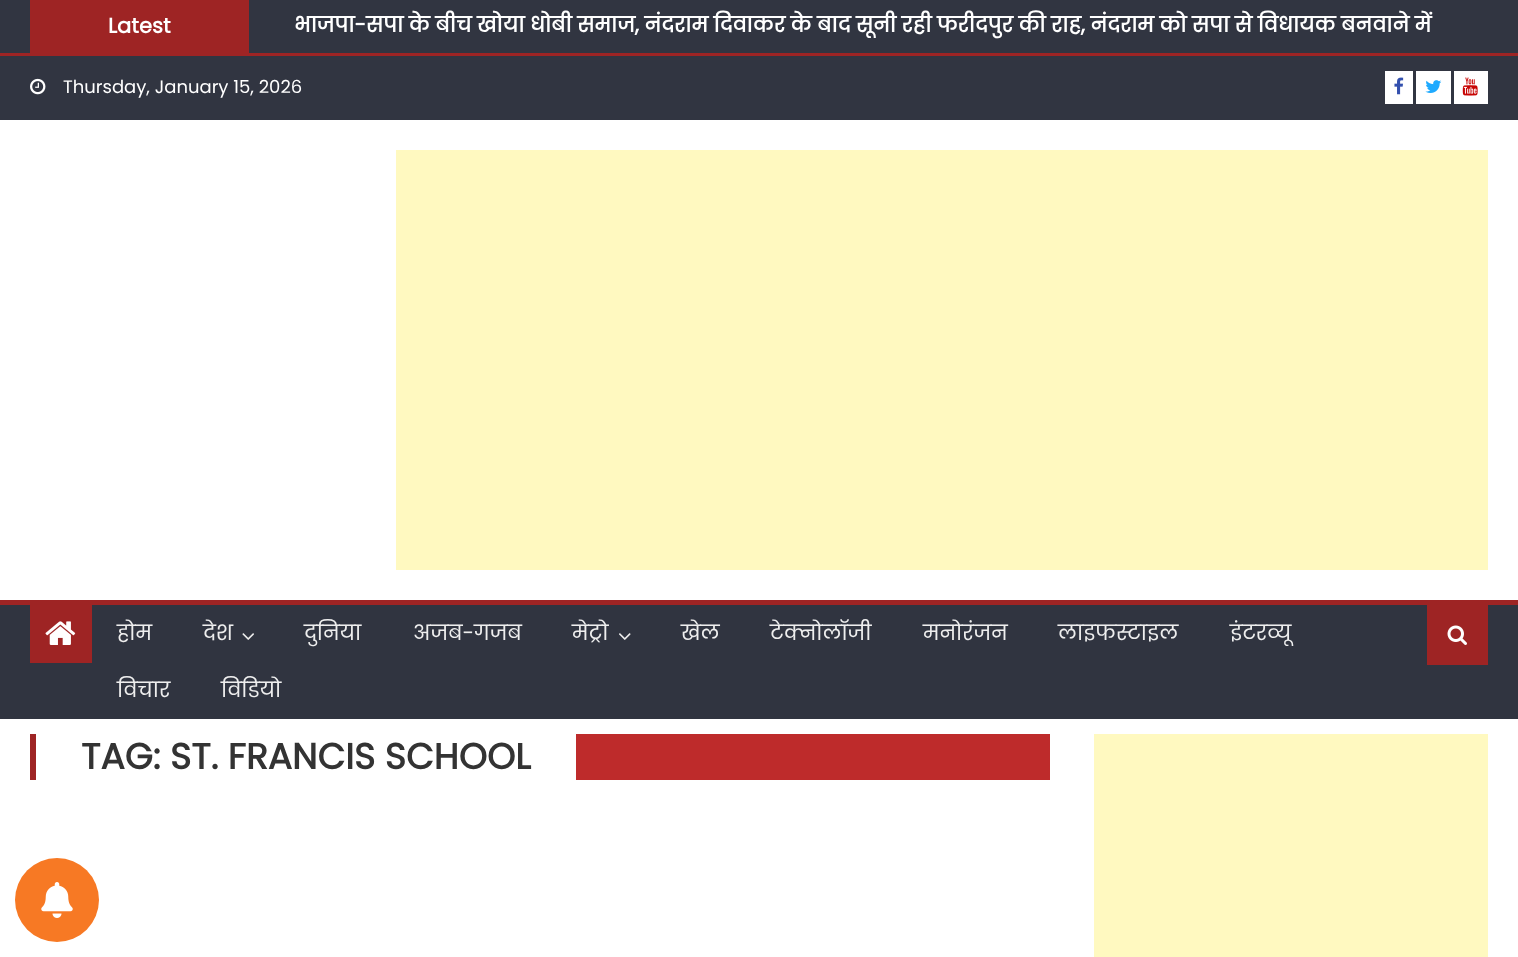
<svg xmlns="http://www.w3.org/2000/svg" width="1518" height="957">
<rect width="100%" height="100%" fill="#fff"/>
<rect width="1518" height="53" fill="#313541"/>
<rect x="30" width="219" height="53" fill="#9e2424"/>
<text x="108" y="33" style="font-family:Poppins;font-size:21px;font-weight:bold;fill:#fff">Latest</text>
<text x="294" y="32" style="font-family:Poppins;font-size:21px;font-weight:bold;fill:#fff">भाजपा-सपा के बीच खोया धोबी समाज, नंदराम दिवाकर के बाद सूनी रही फरीदपुर की राह, नंदराम को सपा से विधायक बनवाने में</text>
<rect y="56" width="1518" height="64" fill="#313541"/>
<rect y="53" width="1518" height="3" fill="#9e2424"/>
<image x="30" y="78" width="16" height="17" href="media/1.png"/>
<text x="63" y="93" style="font-family:Poppins;font-size:18px;fill:#fff">Thursday, January 15, 2026</text>
<rect x="1385" y="71" width="28" height="33" fill="#fff"/>
<image x="1394" y="77" width="10" height="18" href="media/2.png"/>
<rect x="1416" y="71" width="35" height="33" fill="#fff"/>
<image x="1425" y="80" width="17" height="13" href="media/3.png"/>
<rect x="1454" y="71" width="34" height="33" fill="#fff"/>
<image x="1462" y="77" width="16" height="19" href="media/4.png"/>
<rect x="396" y="150" width="1092" height="420" fill="#fff9c0"/>
<rect y="605" width="1518" height="114" fill="#303440"/>
<rect y="600" width="1518" height="5" fill="#9e2424"/>
<rect x="30" y="605" width="62" height="58" fill="#9e2424"/>
<image x="45" y="621" width="31" height="24" href="media/5.png"/>
<text x="117" y="640" style="font-family:Poppins;font-size:21px;fill:#eee">होम</text>
<text x="203" y="640" style="font-family:Poppins;font-size:21px;fill:#eee">देश</text>
<image x="242" y="633" width="12" height="7" href="media/6.png"/>
<text x="304" y="640" style="font-family:Poppins;font-size:21px;fill:#eee">दुनिया</text>
<text x="413" y="640" style="font-family:Poppins;font-size:21px;fill:#eee">अजब-गजब</text>
<text x="572" y="640" style="font-family:Poppins;font-size:21px;fill:#eee">मेट्रो</text>
<image x="619" y="633" width="12" height="7" href="media/7.png"/>
<text x="681" y="640" style="font-family:Poppins;font-size:21px;fill:#eee">खेल</text>
<text x="770" y="640" style="font-family:Poppins;font-size:21px;fill:#eee">टेक्नोलॉजी</text>
<text x="923" y="640" style="font-family:Poppins;font-size:21px;fill:#eee">मनोरंजन</text>
<text x="1058" y="640" style="font-family:Poppins;font-size:21px;fill:#eee">लाइफस्टाइल</text>
<text x="1230" y="640" style="font-family:Poppins;font-size:21px;fill:#eee">इंटरव्यू</text>
<text x="117" y="697" style="font-family:Poppins;font-size:21px;fill:#eee">विचार</text>
<text x="221" y="697" style="font-family:Poppins;font-size:21px;fill:#eee">विडियो</text>
<rect x="1427" y="605" width="61" height="60" fill="#9e2424"/>
<image x="1447" y="625" width="20" height="20" href="media/8.png"/>
<rect x="576" y="734" width="474" height="46" fill="#be2b2b"/>
<rect x="30" y="734" width="6" height="46" fill="#9e2424"/>
<text x="81" y="769" style="font-family:Poppins;font-size:36px;font-weight:bold;fill:#333">TAG: ST. FRANCIS SCHOOL</text>
<rect x="1094" y="734" width="394" height="223" fill="#fff9c0"/>
<circle cx="57" cy="900" r="42" fill="#f77924"/>
<image x="41" y="882" width="32" height="36" href="media/9.png"/>
</svg>
